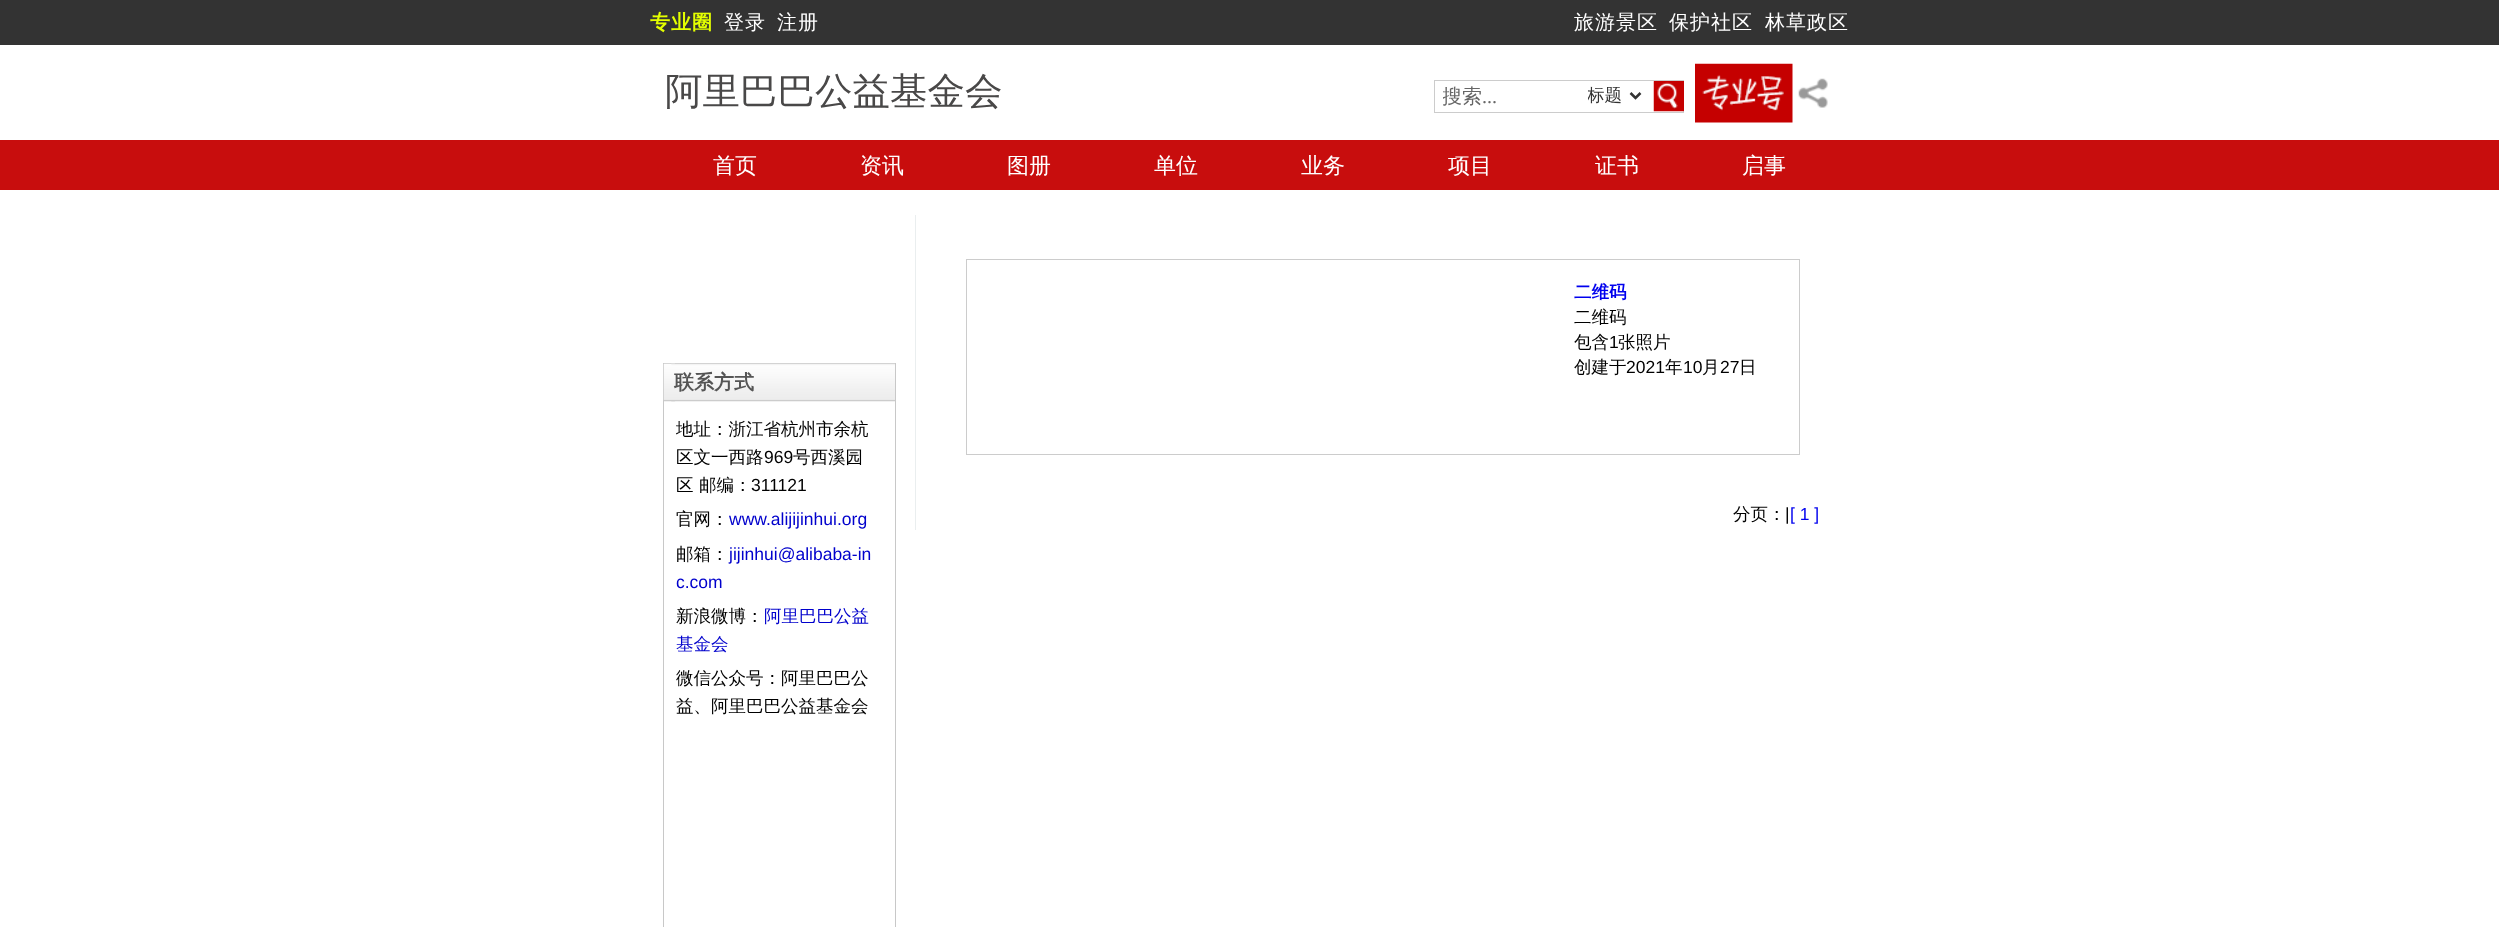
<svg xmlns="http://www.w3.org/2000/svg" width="2499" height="927">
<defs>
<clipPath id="clip1"><rect x="1443" y="84" width="232" height="26"/></clipPath>
<clipPath id="clip2"><rect x="1588" y="85" width="35" height="21"/></clipPath>
</defs>
<rect width="100%" height="100%" fill="#fff"/>
<rect width="2499" height="45" fill="#333"/>
<text x="650" y="29" style="font-family:WenQuanYi Zen Hei;font-size:20px;font-weight:bold;letter-spacing:1px;fill:#e4ff00">专业圈</text>
<text x="724" y="29" style="font-family:WenQuanYi Zen Hei;font-size:20px;font-weight:500;letter-spacing:1px;fill:#fff">登录</text>
<text x="777" y="29" style="font-family:WenQuanYi Zen Hei;font-size:20px;font-weight:500;letter-spacing:1px;fill:#fff">注册</text>
<text x="1574" y="29" style="font-family:WenQuanYi Zen Hei;font-size:20px;font-weight:500;letter-spacing:1px;fill:#fff">旅游景区</text>
<text x="1669" y="29" style="font-family:WenQuanYi Zen Hei;font-size:20px;font-weight:500;letter-spacing:1px;fill:#fff">保护社区</text>
<text x="1765" y="29" style="font-family:WenQuanYi Zen Hei;font-size:20px;font-weight:500;letter-spacing:1px;fill:#fff">林草政区</text>
<text x="665" y="104" style="font-family:WenQuanYi Zen Hei;font-size:37.5px;font-weight:500;fill:#494848">阿里巴巴公益基金会</text>
<rect x="1434.5" y="80.5" width="249" height="32" fill="none" stroke="#ccc"/>
<g clip-path="url(#clip1)">
<text x="1442" y="103" style="font-family:WenQuanYi Zen Hei;font-size:20px;font-weight:500;fill:#666">搜索</text>
</g>
<text x="1482" y="103" style="font-family:Liberation Serif;font-size:20px;fill:#666">...</text>
<path d="M1630.5 93l5 5l5-5" fill="none" stroke="#333" stroke-width="2.5"/>
<g clip-path="url(#clip2)">
<text x="1587" y="101" style="font-family:WenQuanYi Zen Hei;font-size:17.5px;font-weight:500;fill:#333">标题</text>
</g>
<rect x="1654" y="81" width="30" height="30" fill="#c50000"/>
<image x="1653" y="81" width="31" height="31" href="media/1.png"/>
<image x="1695" y="63" width="98" height="60" href="media/2.png"/>
<image x="1798" y="78" width="30" height="30" href="media/3.png"/>
<rect y="140" width="2499" height="50" fill="#c80d0d"/>
<text x="713" y="173" style="font-family:WenQuanYi Zen Hei;font-size:22px;font-weight:500;fill:#fff">首页</text>
<text x="860" y="173" style="font-family:WenQuanYi Zen Hei;font-size:22px;font-weight:500;fill:#fff">资讯</text>
<text x="1007" y="173" style="font-family:WenQuanYi Zen Hei;font-size:22px;font-weight:500;fill:#fff">图册</text>
<text x="1154" y="173" style="font-family:WenQuanYi Zen Hei;font-size:22px;font-weight:500;fill:#fff">单位</text>
<text x="1301" y="173" style="font-family:WenQuanYi Zen Hei;font-size:22px;font-weight:500;fill:#fff">业务</text>
<text x="1448" y="173" style="font-family:WenQuanYi Zen Hei;font-size:22px;font-weight:500;fill:#fff">项目</text>
<text x="1595" y="173" style="font-family:WenQuanYi Zen Hei;font-size:22px;font-weight:500;fill:#fff">证书</text>
<text x="1742" y="173" style="font-family:WenQuanYi Zen Hei;font-size:22px;font-weight:500;fill:#fff">启事</text>
<rect x="663.5" y="363.5" width="232" height="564" fill="none" stroke="#c8c8c8"/>
<image x="663" y="363" width="13" height="39" href="media/4.png"/>
<image x="671" y="363" width="224" height="39" href="media/5.png"/>
<text x="674" y="389" style="font-family:WenQuanYi Zen Hei;font-size:20px;font-weight:bold;fill:#555">联系方式</text>
<text x="676" y="435" style="font-family:WenQuanYi Zen Hei;font-size:17.5px;font-weight:500;fill:#000">地址：浙江省杭州市余杭</text>
<text x="676" y="463" style="font-family:WenQuanYi Zen Hei;font-size:17.5px;font-weight:500;fill:#000">区文一西路</text>
<text x="764" y="463" style="font-family:Liberation Sans;font-size:17.5px;fill:#000">969</text>
<text x="793" y="463" style="font-family:WenQuanYi Zen Hei;font-size:17.5px;font-weight:500;fill:#000">号西溪园</text>
<text x="676" y="491" style="font-family:WenQuanYi Zen Hei;font-size:17.5px;font-weight:500;fill:#000">区</text>
<text x="699" y="491" style="font-family:WenQuanYi Zen Hei;font-size:17.5px;font-weight:500;fill:#000">邮编：</text>
<text x="751" y="491" style="font-family:Liberation Sans;font-size:17.5px;fill:#000">311121</text>
<text x="676" y="525" style="font-family:WenQuanYi Zen Hei;font-size:17.5px;font-weight:500;fill:#000">官网：</text>
<text x="729" y="525" style="font-family:Liberation Sans;font-size:17.5px;fill:#00c">www.alijijinhui.org</text>
<text x="676" y="560" style="font-family:WenQuanYi Zen Hei;font-size:17.5px;font-weight:500;fill:#000">邮箱：</text>
<text x="729" y="560" style="font-family:Liberation Sans;font-size:17.5px;fill:#00c">jijinhui@alibaba-in</text>
<text x="676" y="588" style="font-family:Liberation Sans;font-size:17.5px;fill:#00c">c.com</text>
<text x="676" y="622" style="font-family:WenQuanYi Zen Hei;font-size:17.5px;font-weight:500;fill:#000">新浪微博：</text>
<text x="764" y="622" style="font-family:WenQuanYi Zen Hei;font-size:17.5px;font-weight:500;fill:#00c">阿里巴巴公益</text>
<text x="676" y="650" style="font-family:WenQuanYi Zen Hei;font-size:17.5px;font-weight:500;fill:#00c">基金会</text>
<text x="676" y="684" style="font-family:WenQuanYi Zen Hei;font-size:17.5px;font-weight:500;fill:#000">微信公众号：阿里巴巴公</text>
<text x="676" y="712" style="font-family:WenQuanYi Zen Hei;font-size:17.5px;font-weight:500;fill:#000">益、阿里巴巴公益基金会</text>
<rect x="915" y="215" width="1" height="315" fill="#eaeeef"/>
<rect x="966.5" y="259.5" width="833" height="195" fill="none" stroke="#ccc"/>
<text x="1574" y="298" style="font-family:WenQuanYi Zen Hei;font-size:17.5px;font-weight:bold;fill:#00e">二维码</text>
<text x="1574" y="323" style="font-family:WenQuanYi Zen Hei;font-size:17.5px;font-weight:500;fill:#000">二维码</text>
<text x="1574" y="348" style="font-family:WenQuanYi Zen Hei;font-size:17.5px;font-weight:500;fill:#000">包含</text>
<text x="1609" y="348" style="font-family:Liberation Sans;font-size:17.5px;fill:#000">1</text>
<text x="1618" y="348" style="font-family:WenQuanYi Zen Hei;font-size:17.5px;font-weight:500;fill:#000">张照片</text>
<text x="1574" y="373" style="font-family:WenQuanYi Zen Hei;font-size:17.5px;font-weight:500;fill:#000">创建于</text>
<text x="1626" y="373" style="font-family:Liberation Sans;font-size:17.5px;fill:#000">2021</text>
<text x="1665" y="373" style="font-family:WenQuanYi Zen Hei;font-size:17.5px;font-weight:500;fill:#000">年</text>
<text x="1683" y="373" style="font-family:Liberation Sans;font-size:17.5px;fill:#000">10</text>
<text x="1702" y="373" style="font-family:WenQuanYi Zen Hei;font-size:17.5px;font-weight:500;fill:#000">月</text>
<text x="1720" y="373" style="font-family:Liberation Sans;font-size:17.5px;fill:#000">27</text>
<text x="1739" y="373" style="font-family:WenQuanYi Zen Hei;font-size:17.5px;font-weight:500;fill:#000">日</text>
<text x="1733" y="520" style="font-family:WenQuanYi Zen Hei;font-size:17.5px;font-weight:500;fill:#000">分页：</text>
<text x="1785" y="520" style="font-family:Liberation Sans;font-size:17.5px;fill:#000">|</text>
<text x="1790" y="520" style="font-family:Liberation Sans;font-size:17.5px;fill:#00e">[ 1 ]</text>
</svg>
